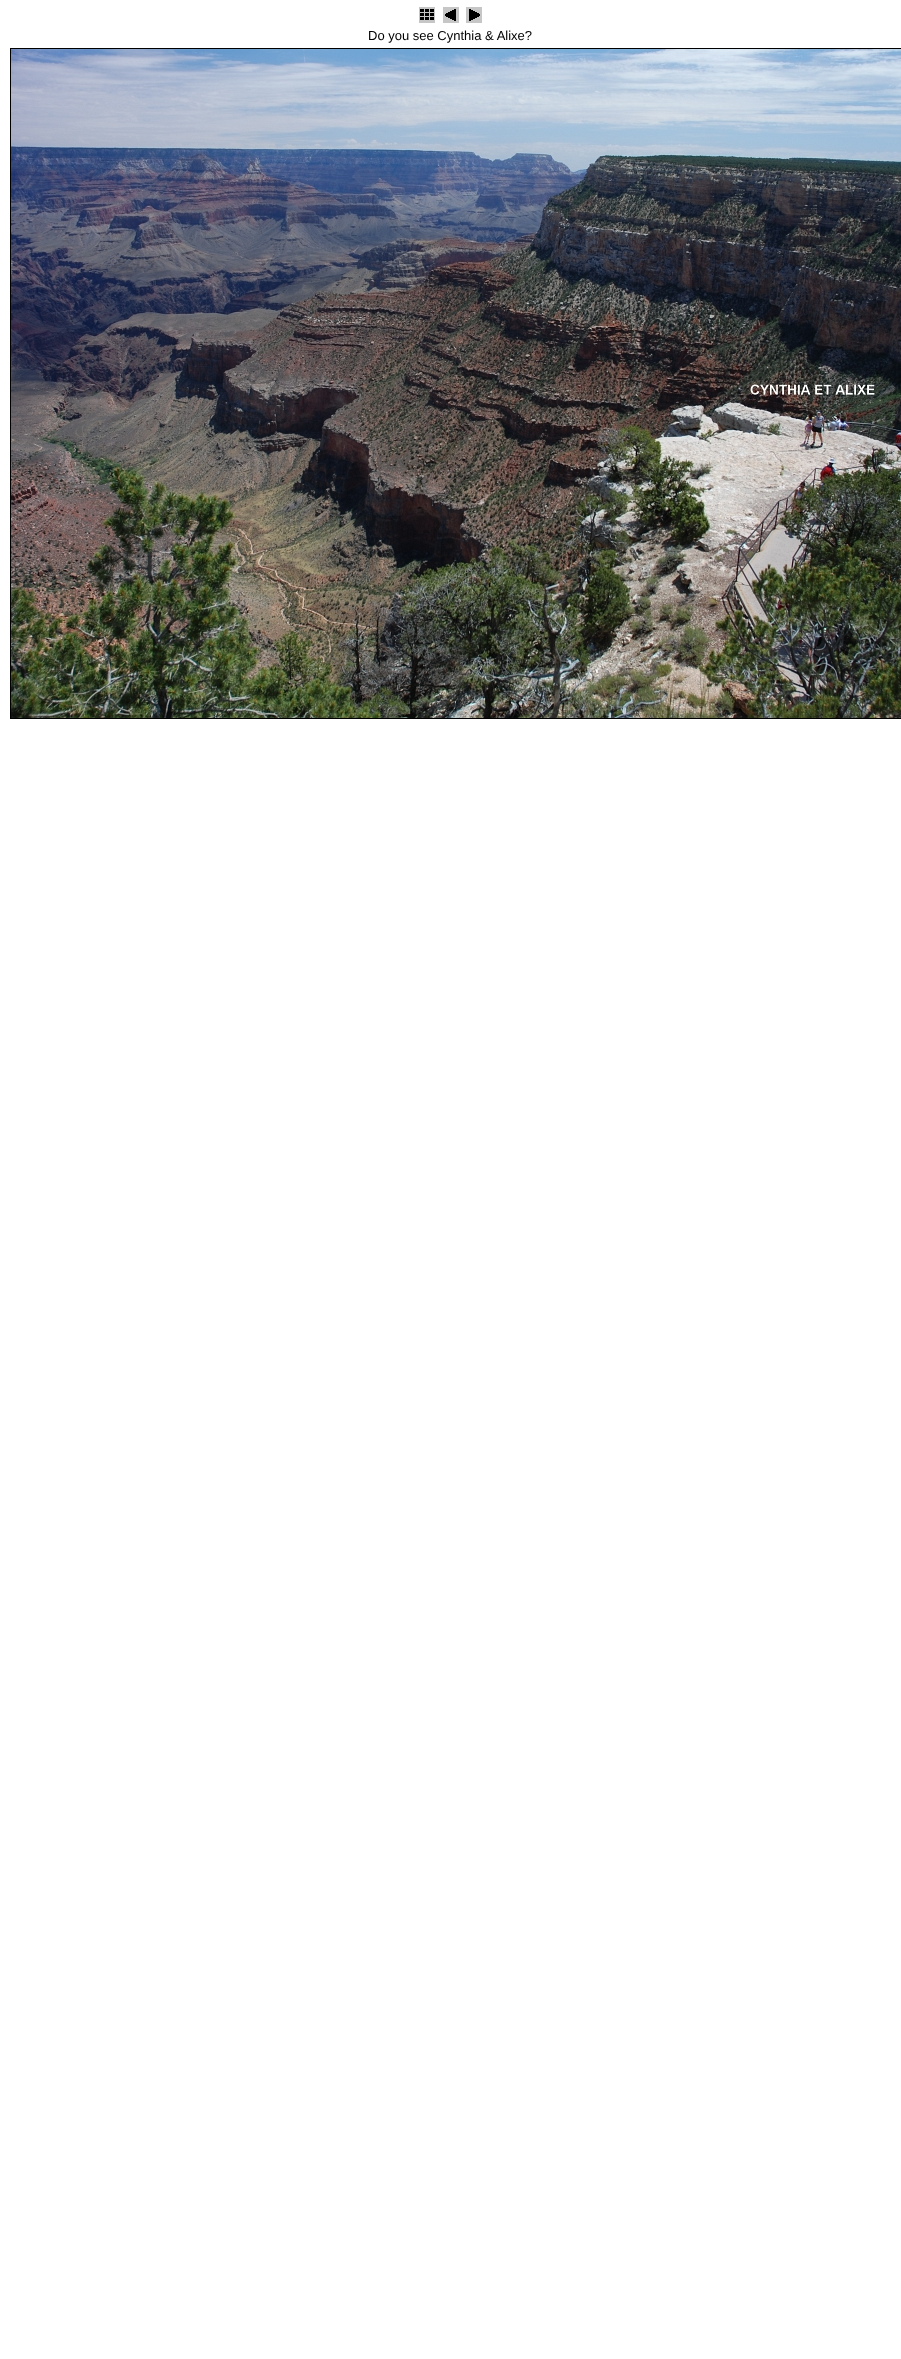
<svg xmlns="http://www.w3.org/2000/svg" width="901" height="2359">
<rect width="100%" height="100%" fill="#fff"/>
<image x="419" y="7" width="16" height="16" href="media/1.png"/>
<image x="443" y="7" width="16" height="16" href="media/2.png"/>
<image x="466" y="7" width="16" height="16" href="media/3.png"/>
<text x="368" y="40" style="font-family:Liberation Sans;font-size:13px;fill:#000">Do you see Cynthia &amp; Alixe?</text>
<rect x="10.5" y="48.5" width="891" height="670" fill="none" stroke="#000"/>
<image x="11" y="49" width="890" height="669" href="media/4.png"/>
</svg>
